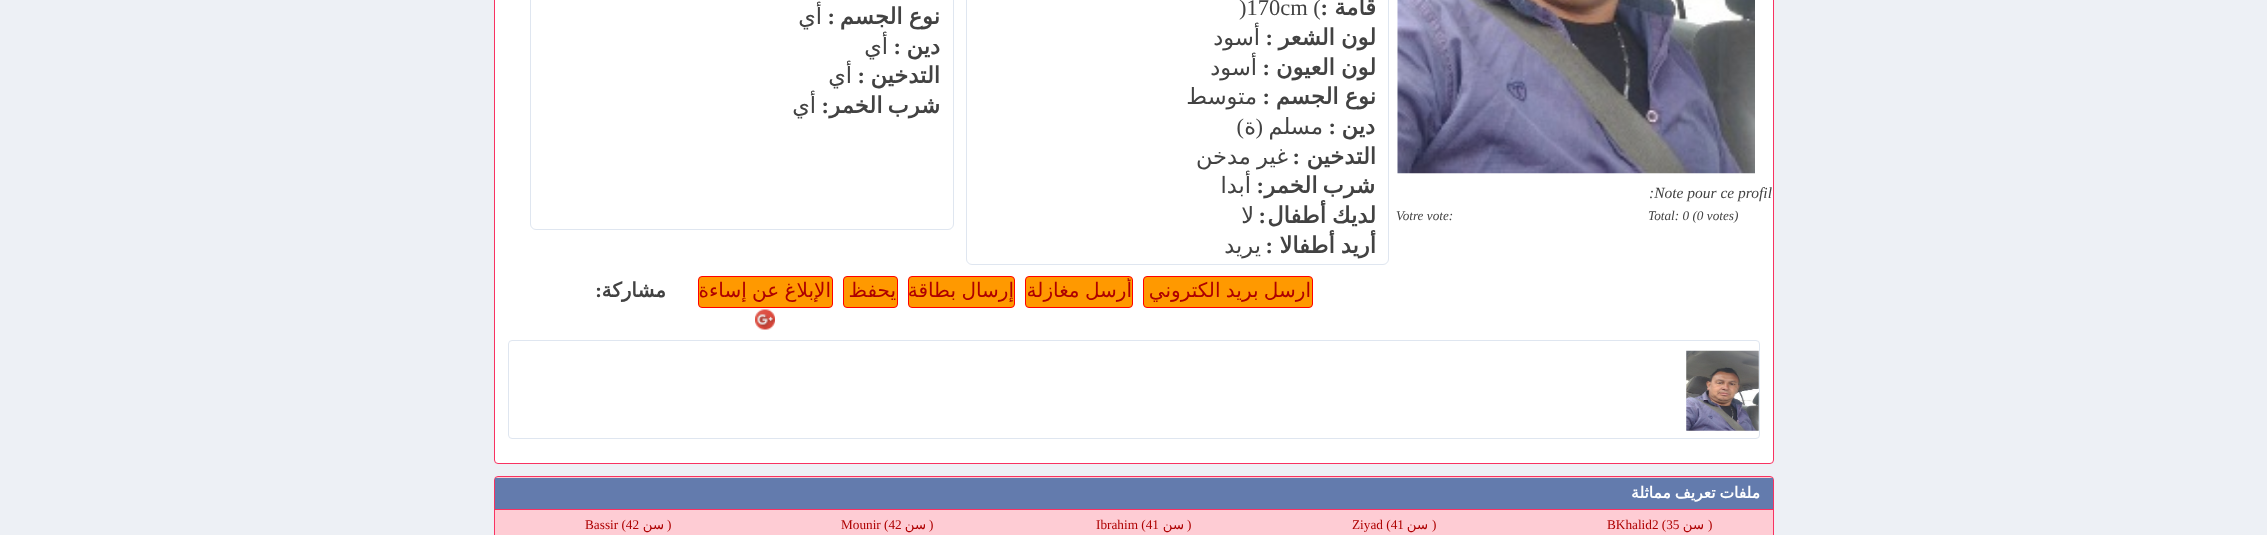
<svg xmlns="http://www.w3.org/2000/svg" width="2267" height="535">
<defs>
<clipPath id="clip1"><rect x="1144" y="278" width="167" height="28" rx="2.5"/></clipPath>
<clipPath id="clip2"><rect x="1026" y="278" width="105" height="28" rx="2.5"/></clipPath>
<clipPath id="clip3"><rect x="909" y="278" width="105" height="28" rx="2.5"/></clipPath>
<clipPath id="clip4"><rect x="699" y="278" width="132" height="28" rx="2.5"/></clipPath>
</defs>
<rect width="100%" height="100%" fill="#edf0f5"/>
<rect x="494.5" y="-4.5" width="1279" height="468" rx="3.5" fill="#fff" stroke="#f83261"/>
<image x="1397" y="0" width="358" height="174" href="media/1.png"/>
<text x="1649" y="198" style="font-family:Liberation Serif;font-size:15.5px;font-style:italic;fill:#424242">:Note pour ce profil</text>
<text x="1648" y="220" style="font-family:Liberation Serif;font-size:13.25px;font-style:italic;fill:#424242">Total: 0 (0 votes)</text>
<text x="1396" y="220" style="font-family:Liberation Serif;font-size:13.25px;font-style:italic;fill:#424242">Votre vote:</text>
<rect x="966.5" y="-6.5" width="422" height="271" rx="5.5" fill="none" stroke="#dfe6f0"/>
<text x="1376" y="15" style="font-family:DejaVu Sans;font-size:22.5px;font-weight:bold;direction:rtl;fill:#424242">قامة</text>
<text x="1328" y="15" style="font-family:Liberation Serif;font-size:22.5px;font-weight:bold;direction:rtl;fill:#424242">:</text>
<text x="1239" y="15" style="font-family:Liberation Serif;font-size:22.5px;fill:#424242">)170cm (</text>
<text x="1376" y="45" word-spacing="-1" style="font-family:DejaVu Sans;font-size:22.5px;font-weight:bold;direction:rtl;fill:#424242">لون الشعر</text>
<text x="1273" y="45" style="font-family:Liberation Serif;font-size:22.5px;font-weight:bold;direction:rtl;fill:#424242">:</text>
<text x="1260" y="45" style="font-family:DejaVu Sans;font-size:22.5px;direction:rtl;fill:#424242">أسود</text>
<text x="1376" y="75" word-spacing="-1" style="font-family:DejaVu Sans;font-size:22.5px;font-weight:bold;direction:rtl;fill:#424242">لون العيون</text>
<text x="1270" y="75" style="font-family:Liberation Serif;font-size:22.5px;font-weight:bold;direction:rtl;fill:#424242">:</text>
<text x="1257" y="75" style="font-family:DejaVu Sans;font-size:22.5px;direction:rtl;fill:#424242">أسود</text>
<text x="1376" y="104" word-spacing="-1" style="font-family:DejaVu Sans;font-size:22.5px;font-weight:bold;direction:rtl;fill:#424242">نوع الجسم</text>
<text x="1270" y="104" style="font-family:Liberation Serif;font-size:22.5px;font-weight:bold;direction:rtl;fill:#424242">:</text>
<text x="1257" y="104" style="font-family:DejaVu Sans;font-size:22.5px;direction:rtl;fill:#424242">متوسط</text>
<text x="1375" y="134" style="font-family:DejaVu Sans;font-size:22.5px;font-weight:bold;direction:rtl;fill:#424242">دين</text>
<text x="1336" y="134" style="font-family:Liberation Serif;font-size:22.5px;font-weight:bold;direction:rtl;fill:#424242">:</text>
<text x="1323" y="134" style="font-family:DejaVu Sans;font-size:22.5px;direction:rtl;fill:#424242">مسلم</text>
<text x="1263" y="134" style="font-family:Liberation Serif;font-size:22.5px;direction:rtl;fill:#424242">(</text>
<text x="1256" y="134" style="font-family:DejaVu Sans;font-size:22.5px;direction:rtl;fill:#424242">ة</text>
<text x="1244" y="134" style="font-family:Liberation Serif;font-size:22.5px;direction:rtl;fill:#424242">)</text>
<text x="1376" y="164" style="font-family:DejaVu Sans;font-size:22.5px;font-weight:bold;direction:rtl;fill:#424242">التدخين</text>
<text x="1300" y="164" style="font-family:Liberation Serif;font-size:22.5px;font-weight:bold;direction:rtl;fill:#424242">:</text>
<text x="1288" y="164" word-spacing="-1" style="font-family:DejaVu Sans;font-size:22.5px;direction:rtl;fill:#424242">غير مدخن</text>
<text x="1375" y="193" word-spacing="-2" style="font-family:DejaVu Sans;font-size:22.5px;font-weight:bold;direction:rtl;fill:#424242">شرب الخمر</text>
<text x="1264" y="193" style="font-family:Liberation Serif;font-size:22.5px;font-weight:bold;direction:rtl;fill:#424242">:</text>
<text x="1251" y="193" style="font-family:DejaVu Sans;font-size:22.5px;direction:rtl;fill:#424242">أبدا</text>
<text x="1376" y="223" word-spacing="-1" style="font-family:DejaVu Sans;font-size:22.5px;font-weight:bold;direction:rtl;fill:#424242">لديك أطفال</text>
<text x="1266" y="223" style="font-family:Liberation Serif;font-size:22.5px;font-weight:bold;direction:rtl;fill:#424242">:</text>
<text x="1254" y="223" style="font-family:DejaVu Sans;font-size:22.5px;direction:rtl;fill:#424242">لا</text>
<text x="1376" y="253" word-spacing="-1" style="font-family:DejaVu Sans;font-size:22.5px;font-weight:bold;direction:rtl;fill:#424242">أريد أطفالا</text>
<text x="1273" y="253" style="font-family:Liberation Serif;font-size:22.5px;font-weight:bold;direction:rtl;fill:#424242">:</text>
<text x="1261" y="253" style="font-family:DejaVu Sans;font-size:22.5px;direction:rtl;fill:#424242">يريد</text>
<rect x="530.5" y="-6.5" width="423" height="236" rx="5.5" fill="none" stroke="#dfe6f0"/>
<text x="940" y="24" word-spacing="-1" style="font-family:DejaVu Sans;font-size:22.5px;font-weight:bold;direction:rtl;fill:#424242">نوع الجسم</text>
<text x="835" y="24" style="font-family:Liberation Serif;font-size:22.5px;font-weight:bold;direction:rtl;fill:#424242">:</text>
<text x="822" y="24" style="font-family:DejaVu Sans;font-size:22.5px;direction:rtl;fill:#424242">أي</text>
<text x="940" y="54" style="font-family:DejaVu Sans;font-size:22.5px;font-weight:bold;direction:rtl;fill:#424242">دين</text>
<text x="901" y="54" style="font-family:Liberation Serif;font-size:22.5px;font-weight:bold;direction:rtl;fill:#424242">:</text>
<text x="888" y="54" style="font-family:DejaVu Sans;font-size:22.5px;direction:rtl;fill:#424242">أي</text>
<text x="940" y="83" style="font-family:DejaVu Sans;font-size:22.5px;font-weight:bold;direction:rtl;fill:#424242">التدخين</text>
<text x="865" y="83" style="font-family:Liberation Serif;font-size:22.5px;font-weight:bold;direction:rtl;fill:#424242">:</text>
<text x="852" y="83" style="font-family:DejaVu Sans;font-size:22.5px;direction:rtl;fill:#424242">أي</text>
<text x="940" y="113" word-spacing="-2" style="font-family:DejaVu Sans;font-size:22.5px;font-weight:bold;direction:rtl;fill:#424242">شرب الخمر</text>
<text x="829" y="113" style="font-family:Liberation Serif;font-size:22.5px;font-weight:bold;direction:rtl;fill:#424242">:</text>
<text x="816" y="113" style="font-family:DejaVu Sans;font-size:22.5px;direction:rtl;fill:#424242">أي</text>
<rect x="1143.5" y="276.5" width="169" height="31" rx="3.5" fill="#f90" stroke="#f00"/>
<g clip-path="url(#clip1)">
<text x="1311" y="297" word-spacing="-1" style="font-family:DejaVu Sans;font-size:20px;direction:rtl;fill:#ae0001">ارسل بريد الكتروني</text>
</g>
<rect x="1025.5" y="276.5" width="107" height="31" rx="3.5" fill="#f90" stroke="#f00"/>
<g clip-path="url(#clip2)">
<text x="1132" y="297" word-spacing="-1" style="font-family:DejaVu Sans;font-size:20px;direction:rtl;fill:#ae0001">أرسل مغازلة</text>
</g>
<rect x="908.5" y="276.5" width="106" height="31" rx="3.5" fill="#f90" stroke="#f00"/>
<g clip-path="url(#clip3)">
<text x="1014" y="297" word-spacing="-1" style="font-family:DejaVu Sans;font-size:20px;direction:rtl;fill:#ae0001">إرسال بطاقة</text>
</g>
<rect x="843.5" y="276.5" width="54" height="31" rx="3.5" fill="#f90" stroke="#f00"/>
<text x="896" y="297" style="font-family:DejaVu Sans;font-size:20px;direction:rtl;fill:#ae0001">يحفظ</text>
<rect x="698.5" y="276.5" width="134" height="31" rx="3.5" fill="#f90" stroke="#f00"/>
<g clip-path="url(#clip4)">
<text x="831" y="297" word-spacing="-1" style="font-family:DejaVu Sans;font-size:20px;direction:rtl;fill:#ae0001">الإبلاغ عن إساءة</text>
</g>
<text x="666" y="297" style="font-family:DejaVu Sans;font-size:20px;font-weight:bold;direction:rtl;fill:#424242">مشاركة</text>
<text x="602" y="297" style="font-family:Liberation Serif;font-size:20px;font-weight:bold;direction:rtl;fill:#424242">:</text>
<image x="755" y="309" width="20" height="21" href="media/2.png"/>
<rect x="508.5" y="340.5" width="1251" height="98" rx="3.5" fill="none" stroke="#dfe6f0"/>
<image x="1686" y="350" width="73" height="81" href="media/3.png"/>
<rect x="494.5" y="476.5" width="1279" height="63" rx="3.5" fill="#feccd4" stroke="#f83261"/>
<rect x="495" y="478" width="1278" height="31" fill="#637bad"/>
<rect x="495" y="509" width="1278" height="1" fill="#f83261"/>
<text x="1760" y="498" word-spacing="-1" style="font-family:DejaVu Sans;font-size:15.5px;font-weight:bold;direction:rtl;fill:#fff">ملفات تعريف مماثلة</text>
<text x="1708" y="529" style="font-family:Liberation Serif;font-size:13.25px;fill:#ae0001">)</text>
<text x="1704" y="529" style="font-family:DejaVu Sans;font-size:13.25px;direction:rtl;fill:#ae0001">سن</text>
<text x="1607" y="529" style="font-family:Liberation Serif;font-size:13.25px;fill:#ae0001">BKhalid2 (35</text>
<text x="1432" y="529" style="font-family:Liberation Serif;font-size:13.25px;fill:#ae0001">)</text>
<text x="1428" y="529" style="font-family:DejaVu Sans;font-size:13.25px;direction:rtl;fill:#ae0001">سن</text>
<text x="1352" y="529" style="font-family:Liberation Serif;font-size:13.25px;fill:#ae0001">Ziyad (41</text>
<text x="1187" y="529" style="font-family:Liberation Serif;font-size:13.25px;fill:#ae0001">)</text>
<text x="1184" y="529" style="font-family:DejaVu Sans;font-size:13.25px;direction:rtl;fill:#ae0001">سن</text>
<text x="1096" y="529" style="font-family:Liberation Serif;font-size:13.25px;fill:#ae0001">Ibrahim (41</text>
<text x="929" y="529" style="font-family:Liberation Serif;font-size:13.25px;fill:#ae0001">)</text>
<text x="926" y="529" style="font-family:DejaVu Sans;font-size:13.25px;direction:rtl;fill:#ae0001">سن</text>
<text x="841" y="529" style="font-family:Liberation Serif;font-size:13.25px;fill:#ae0001">Mounir (42</text>
<text x="667" y="529" style="font-family:Liberation Serif;font-size:13.25px;fill:#ae0001">)</text>
<text x="664" y="529" style="font-family:DejaVu Sans;font-size:13.25px;direction:rtl;fill:#ae0001">سن</text>
<text x="585" y="529" style="font-family:Liberation Serif;font-size:13.25px;fill:#ae0001">Bassir (42</text>
</svg>
